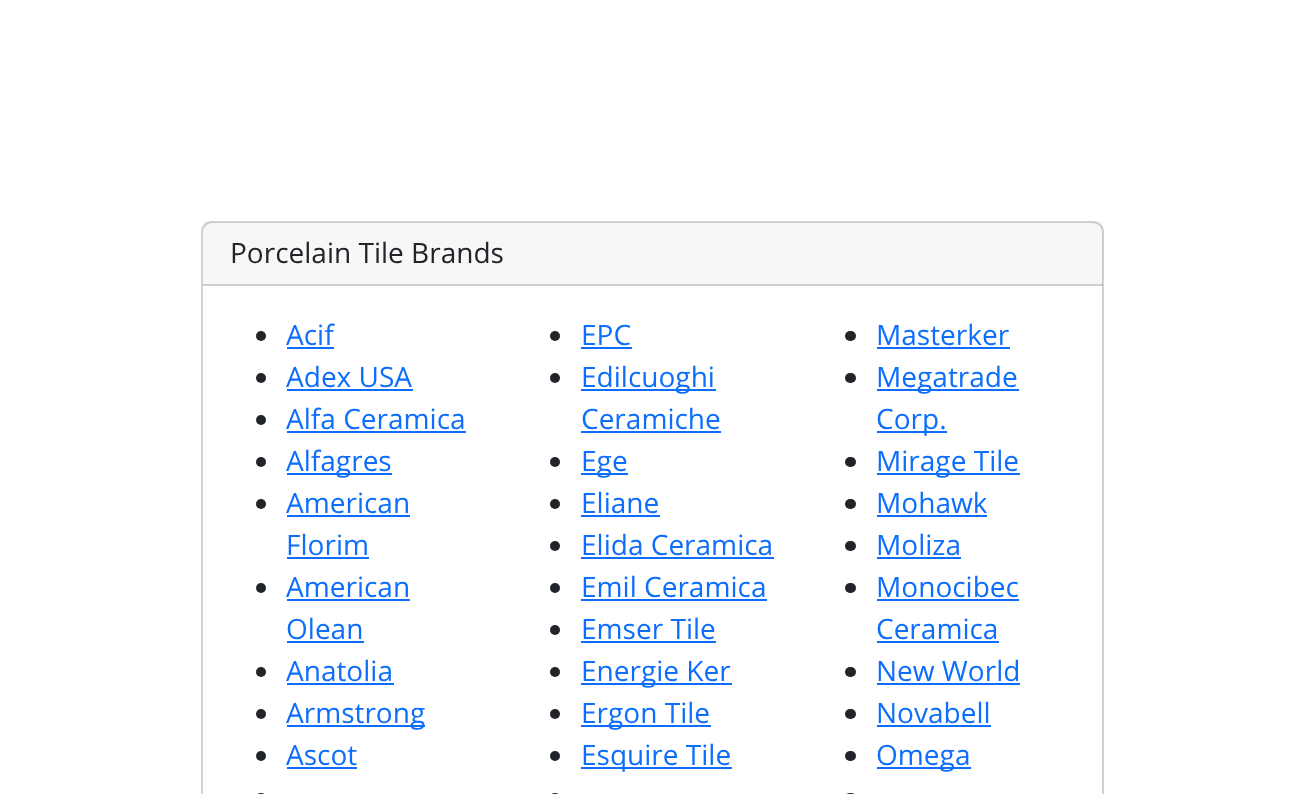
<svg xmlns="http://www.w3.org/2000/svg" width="1303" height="794">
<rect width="100%" height="100%" fill="#fff"/>
<rect x="202" y="222" width="901" height="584" rx="10" fill="none" stroke="#d2d2d2" stroke-width="2"/>
<rect x="203" y="222" width="900" height="63" fill="#00000008"/>
<rect x="203" y="284" width="900" height="2" fill="#0000002e"/>
<text x="230" y="263" style="font-family:Open Sans;font-size:28px;fill:#212529">Porcelain Tile Brands</text>
<circle cx="261" cy="336" r="5" fill="#212529"/>
<text x="286" y="345" style="font-family:Open Sans;font-size:28px;fill:#0d6efd">Acif</text>
<rect x="287" y="347" width="47" height="2" fill="#0d6efd"/>
<circle cx="261" cy="378" r="5" fill="#212529"/>
<text x="286" y="387" style="font-family:Open Sans;font-size:28px;fill:#0d6efd">Adex USA</text>
<rect x="287" y="389" width="126" height="2" fill="#0d6efd"/>
<circle cx="261" cy="420" r="5" fill="#212529"/>
<text x="286" y="429" style="font-family:Open Sans;font-size:28px;fill:#0d6efd">Alfa Ceramica</text>
<rect x="287" y="431" width="179" height="2" fill="#0d6efd"/>
<circle cx="261" cy="462" r="5" fill="#212529"/>
<rect x="287" y="473" width="105" height="2" fill="#0d6efd"/>
<text x="286" y="471" style="font-family:Open Sans;font-size:28px;fill:#0d6efd">Alfagres</text>
<circle cx="261" cy="504" r="5" fill="#212529"/>
<text x="286" y="513" style="font-family:Open Sans;font-size:28px;fill:#0d6efd">American</text>
<rect x="287" y="515" width="123" height="2" fill="#0d6efd"/>
<text x="286" y="555" style="font-family:Open Sans;font-size:28px;fill:#0d6efd">Florim</text>
<rect x="287" y="557" width="82" height="2" fill="#0d6efd"/>
<circle cx="261" cy="588" r="5" fill="#212529"/>
<text x="286" y="597" style="font-family:Open Sans;font-size:28px;fill:#0d6efd">American</text>
<rect x="287" y="599" width="123" height="2" fill="#0d6efd"/>
<text x="286" y="639" style="font-family:Open Sans;font-size:28px;fill:#0d6efd">Olean</text>
<rect x="287" y="641" width="77" height="2" fill="#0d6efd"/>
<circle cx="261" cy="672" r="5" fill="#212529"/>
<text x="286" y="681" style="font-family:Open Sans;font-size:28px;fill:#0d6efd">Anatolia</text>
<rect x="287" y="683" width="107" height="2" fill="#0d6efd"/>
<circle cx="261" cy="714" r="5" fill="#212529"/>
<rect x="287" y="725" width="138" height="2" fill="#0d6efd"/>
<text x="286" y="723" style="font-family:Open Sans;font-size:28px;fill:#0d6efd">Armstrong</text>
<circle cx="261" cy="756" r="5" fill="#212529"/>
<text x="286" y="765" style="font-family:Open Sans;font-size:28px;fill:#0d6efd">Ascot</text>
<rect x="287" y="767" width="70" height="2" fill="#0d6efd"/>
<rect x="256" y="793" width="10" height="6" rx="5" fill="#212529"/>
<circle cx="555" cy="336" r="5" fill="#212529"/>
<text x="581" y="345" style="font-family:Open Sans;font-size:28px;fill:#0d6efd">EPC</text>
<rect x="581" y="347" width="51" height="2" fill="#0d6efd"/>
<circle cx="555" cy="378" r="5" fill="#212529"/>
<rect x="581" y="389" width="135" height="2" fill="#0d6efd"/>
<text x="581" y="387" style="font-family:Open Sans;font-size:28px;fill:#0d6efd">Edilcuoghi</text>
<text x="581" y="429" style="font-family:Open Sans;font-size:28px;fill:#0d6efd">Ceramiche</text>
<rect x="581" y="431" width="140" height="2" fill="#0d6efd"/>
<circle cx="555" cy="462" r="5" fill="#212529"/>
<rect x="581" y="473" width="47" height="2" fill="#0d6efd"/>
<text x="581" y="471" style="font-family:Open Sans;font-size:28px;fill:#0d6efd">Ege</text>
<circle cx="555" cy="504" r="5" fill="#212529"/>
<text x="581" y="513" style="font-family:Open Sans;font-size:28px;fill:#0d6efd">Eliane</text>
<rect x="581" y="515" width="79" height="2" fill="#0d6efd"/>
<circle cx="555" cy="546" r="5" fill="#212529"/>
<text x="581" y="555" style="font-family:Open Sans;font-size:28px;fill:#0d6efd">Elida Ceramica</text>
<rect x="581" y="557" width="193" height="2" fill="#0d6efd"/>
<circle cx="555" cy="588" r="5" fill="#212529"/>
<text x="581" y="597" style="font-family:Open Sans;font-size:28px;fill:#0d6efd">Emil Ceramica</text>
<rect x="581" y="599" width="186" height="2" fill="#0d6efd"/>
<circle cx="555" cy="630" r="5" fill="#212529"/>
<text x="581" y="639" style="font-family:Open Sans;font-size:28px;fill:#0d6efd">Emser Tile</text>
<rect x="581" y="641" width="135" height="2" fill="#0d6efd"/>
<circle cx="555" cy="672" r="5" fill="#212529"/>
<rect x="581" y="683" width="151" height="2" fill="#0d6efd"/>
<text x="581" y="681" style="font-family:Open Sans;font-size:28px;fill:#0d6efd">Energie Ker</text>
<circle cx="555" cy="714" r="5" fill="#212529"/>
<rect x="581" y="725" width="130" height="2" fill="#0d6efd"/>
<text x="581" y="723" style="font-family:Open Sans;font-size:28px;fill:#0d6efd">Ergon Tile</text>
<circle cx="555" cy="756" r="5" fill="#212529"/>
<rect x="581" y="767" width="151" height="2" fill="#0d6efd"/>
<text x="581" y="765" style="font-family:Open Sans;font-size:28px;fill:#0d6efd">Esquire Tile</text>
<rect x="550" y="793" width="10" height="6" rx="5" fill="#212529"/>
<rect x="845" y="331" width="11" height="10" rx="5" fill="#212529"/>
<text x="876" y="345" style="font-family:Open Sans;font-size:28px;fill:#0d6efd">Masterker</text>
<rect x="877" y="347" width="133" height="2" fill="#0d6efd"/>
<rect x="845" y="373" width="11" height="10" rx="5" fill="#212529"/>
<rect x="877" y="389" width="142" height="2" fill="#0d6efd"/>
<text x="876" y="387" style="font-family:Open Sans;font-size:28px;fill:#0d6efd">Megatrade</text>
<rect x="877" y="431" width="70" height="2" fill="#0d6efd"/>
<text x="876" y="429" style="font-family:Open Sans;font-size:28px;fill:#0d6efd">Corp.</text>
<rect x="845" y="457" width="11" height="10" rx="5" fill="#212529"/>
<rect x="877" y="473" width="143" height="2" fill="#0d6efd"/>
<text x="876" y="471" style="font-family:Open Sans;font-size:28px;fill:#0d6efd">Mirage Tile</text>
<rect x="845" y="499" width="11" height="10" rx="5" fill="#212529"/>
<text x="876" y="513" style="font-family:Open Sans;font-size:28px;fill:#0d6efd">Mohawk</text>
<rect x="877" y="515" width="110" height="2" fill="#0d6efd"/>
<rect x="845" y="541" width="11" height="10" rx="5" fill="#212529"/>
<text x="876" y="555" style="font-family:Open Sans;font-size:28px;fill:#0d6efd">Moliza</text>
<rect x="877" y="557" width="84" height="2" fill="#0d6efd"/>
<rect x="845" y="583" width="11" height="10" rx="5" fill="#212529"/>
<text x="876" y="597" style="font-family:Open Sans;font-size:28px;fill:#0d6efd">Monocibec</text>
<rect x="877" y="599" width="142" height="2" fill="#0d6efd"/>
<text x="876" y="639" style="font-family:Open Sans;font-size:28px;fill:#0d6efd">Ceramica</text>
<rect x="877" y="641" width="122" height="2" fill="#0d6efd"/>
<rect x="845" y="667" width="11" height="10" rx="5" fill="#212529"/>
<text x="876" y="681" style="font-family:Open Sans;font-size:28px;fill:#0d6efd">New World</text>
<rect x="877" y="683" width="143" height="2" fill="#0d6efd"/>
<rect x="845" y="709" width="11" height="10" rx="5" fill="#212529"/>
<text x="876" y="723" style="font-family:Open Sans;font-size:28px;fill:#0d6efd">Novabell</text>
<rect x="877" y="725" width="114" height="2" fill="#0d6efd"/>
<rect x="845" y="751" width="11" height="10" rx="5" fill="#212529"/>
<rect x="877" y="767" width="94" height="2" fill="#0d6efd"/>
<text x="876" y="765" style="font-family:Open Sans;font-size:28px;fill:#0d6efd">Omega</text>
<rect x="845" y="793" width="11" height="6" rx="5" fill="#212529"/>
</svg>
